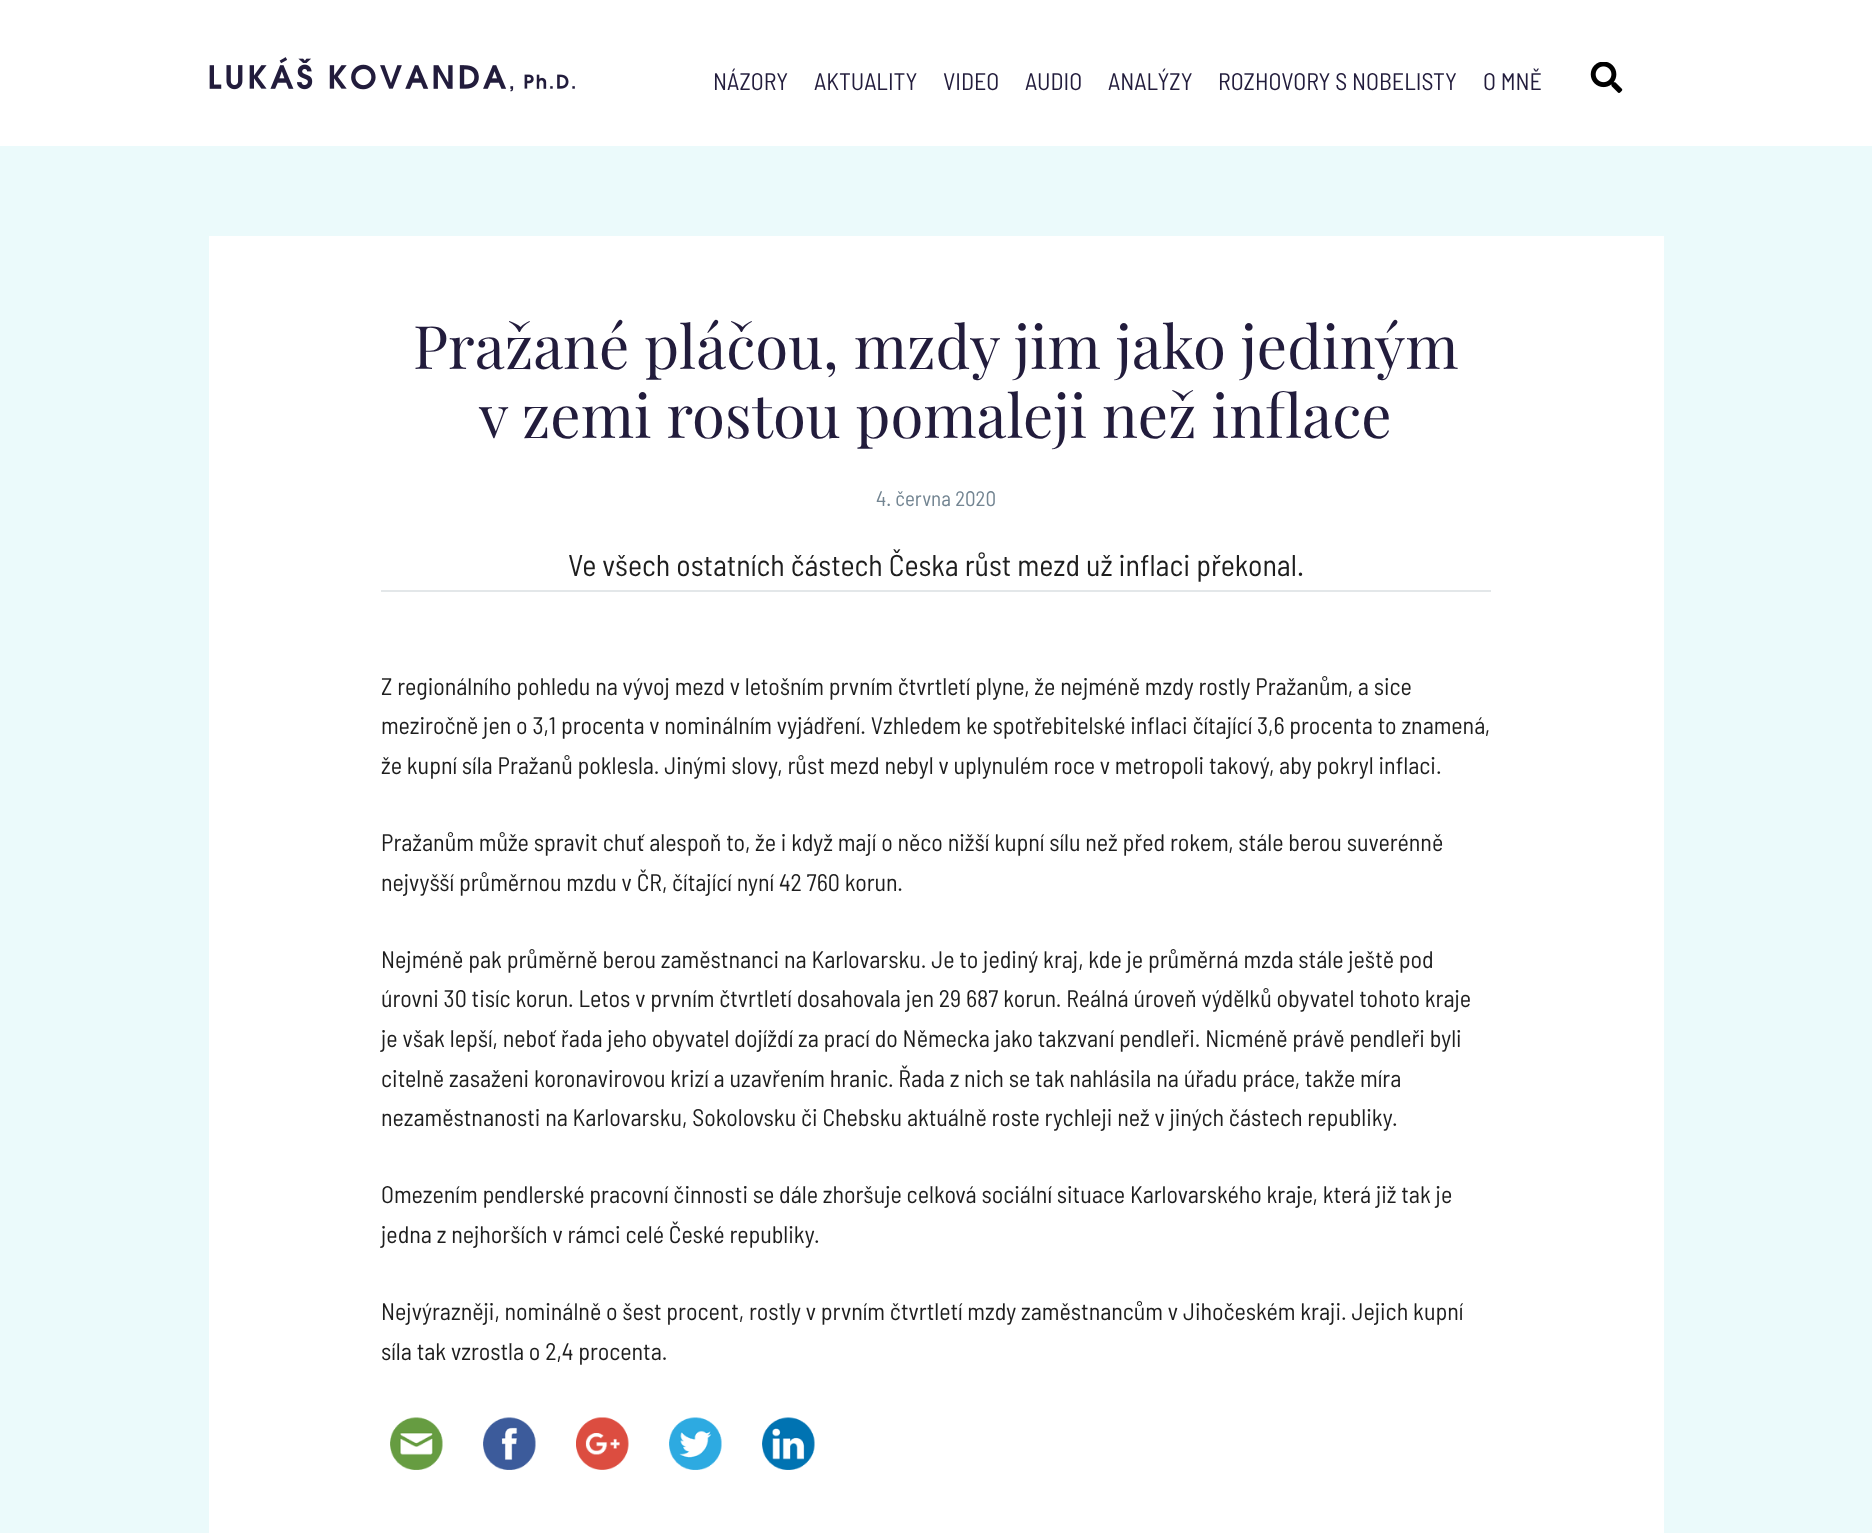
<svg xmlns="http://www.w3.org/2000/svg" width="1872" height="1533">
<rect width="100%" height="100%" fill="#ebfafb"/>
<rect width="1872" height="146" fill="#fff"/>
<image x="209" y="57" width="366" height="35" href="media/1.png"/>
<text x="713" y="90" style="font-family:Barlow Semi Condensed;font-size:24px;fill:#221c3c">NÁZORY</text>
<text x="814" y="90" style="font-family:Barlow Semi Condensed;font-size:24px;fill:#221c3c">AKTUALITY</text>
<text x="943" y="90" style="font-family:Barlow Semi Condensed;font-size:24px;fill:#221c3c">VIDEO</text>
<text x="1025" y="90" style="font-family:Barlow Semi Condensed;font-size:24px;fill:#221c3c">AUDIO</text>
<text x="1108" y="90" style="font-family:Barlow Semi Condensed;font-size:24px;fill:#221c3c">ANALÝZY</text>
<text x="1218" y="90" style="font-family:Barlow Semi Condensed;font-size:24px;fill:#221c3c">ROZHOVORY S NOBELISTY</text>
<text x="1483" y="90" style="font-family:Barlow Semi Condensed;font-size:24px;fill:#221c3c">O MNĚ</text>
<image x="1590" y="62" width="33" height="31" href="media/2.png"/>
<rect x="209" y="236" width="1455" height="1297" fill="#fff"/>
<text x="413" y="369" style="font-family:Playfair Display;font-size:60px;fill:#221c3c">Pražané pláčou, mzdy jim jako jediným</text>
<text x="479" y="438" style="font-family:Playfair Display;font-size:60px;fill:#221c3c">v zemi rostou pomaleji než inflace</text>
<text x="876" y="506" style="font-family:Barlow Semi Condensed;font-size:21px;fill:#738592">4. června 2020</text>
<rect x="381" y="590" width="1110" height="2" fill="#e3e7e9"/>
<text x="568" y="576" style="font-family:Barlow Semi Condensed;font-size:30px;fill:#1e1e1e">Ve všech ostatních částech Česka růst mezd už inflaci překonal.</text>
<text x="381" y="695" style="font-family:Barlow Semi Condensed;font-size:24px;fill:#1e1e1e">Z regionálního pohledu na vývoj mezd v letošním prvním čtvrtletí plyne, že nejméně mzdy rostly Pražanům, a sice</text>
<text x="381" y="734" style="font-family:Barlow Semi Condensed;font-size:24px;fill:#1e1e1e">meziročně jen o 3,1 procenta v nominálním vyjádření. Vzhledem ke spotřebitelské inflaci čítající 3,6 procenta to znamená,</text>
<text x="381" y="774" style="font-family:Barlow Semi Condensed;font-size:24px;fill:#1e1e1e">že kupní síla Pražanů poklesla. Jinými slovy, růst mezd nebyl v uplynulém roce v metropoli takový, aby pokryl inflaci.</text>
<text x="381" y="851" style="font-family:Barlow Semi Condensed;font-size:24px;fill:#1e1e1e">Pražanům může spravit chuť alespoň to, že i když mají o něco nižší kupní sílu než před rokem, stále berou suverénně</text>
<text x="381" y="891" style="font-family:Barlow Semi Condensed;font-size:24px;fill:#1e1e1e">nejvyšší průměrnou mzdu v ČR, čítající nyní 42 760 korun.</text>
<text x="381" y="968" style="font-family:Barlow Semi Condensed;font-size:24px;fill:#1e1e1e">Nejméně pak průměrně berou zaměstnanci na Karlovarsku. Je to jediný kraj, kde je průměrná mzda stále ještě pod</text>
<text x="381" y="1007" style="font-family:Barlow Semi Condensed;font-size:24px;fill:#1e1e1e">úrovni 30 tisíc korun. Letos v prvním čtvrtletí dosahovala jen 29 687 korun. Reálná úroveň výdělků obyvatel tohoto kraje</text>
<text x="381" y="1047" style="font-family:Barlow Semi Condensed;font-size:24px;fill:#1e1e1e">je však lepší, neboť řada jeho obyvatel dojíždí za prací do Německa jako takzvaní pendleři. Nicméně právě pendleři byli</text>
<text x="381" y="1087" style="font-family:Barlow Semi Condensed;font-size:24px;fill:#1e1e1e">citelně zasaženi koronavirovou krizí a uzavřením hranic. Řada z nich se tak nahlásila na úřadu práce, takže míra</text>
<text x="381" y="1126" style="font-family:Barlow Semi Condensed;font-size:24px;fill:#1e1e1e">nezaměstnanosti na Karlovarsku, Sokolovsku či Chebsku aktuálně roste rychleji než v jiných částech republiky.</text>
<text x="381" y="1203" style="font-family:Barlow Semi Condensed;font-size:24px;fill:#1e1e1e">Omezením pendlerské pracovní činnosti se dále zhoršuje celková sociální situace Karlovarského kraje, která již tak je</text>
<text x="381" y="1243" style="font-family:Barlow Semi Condensed;font-size:24px;fill:#1e1e1e">jedna z nejhorších v rámci celé České republiky.</text>
<text x="381" y="1320" style="font-family:Barlow Semi Condensed;font-size:24px;fill:#1e1e1e">Nejvýrazněji, nominálně o šest procent, rostly v prvním čtvrtletí mzdy zaměstnancům v Jihočeském kraji. Jejich kupní</text>
<text x="381" y="1360" style="font-family:Barlow Semi Condensed;font-size:24px;fill:#1e1e1e">síla tak vzrostla o 2,4 procenta.</text>
<image x="390" y="1417" width="53" height="53" href="media/3.png"/>
<image x="483" y="1417" width="53" height="53" href="media/4.png"/>
<image x="576" y="1417" width="53" height="53" href="media/5.png"/>
<image x="669" y="1417" width="53" height="53" href="media/6.png"/>
<image x="762" y="1417" width="53" height="53" href="media/7.png"/>
</svg>
